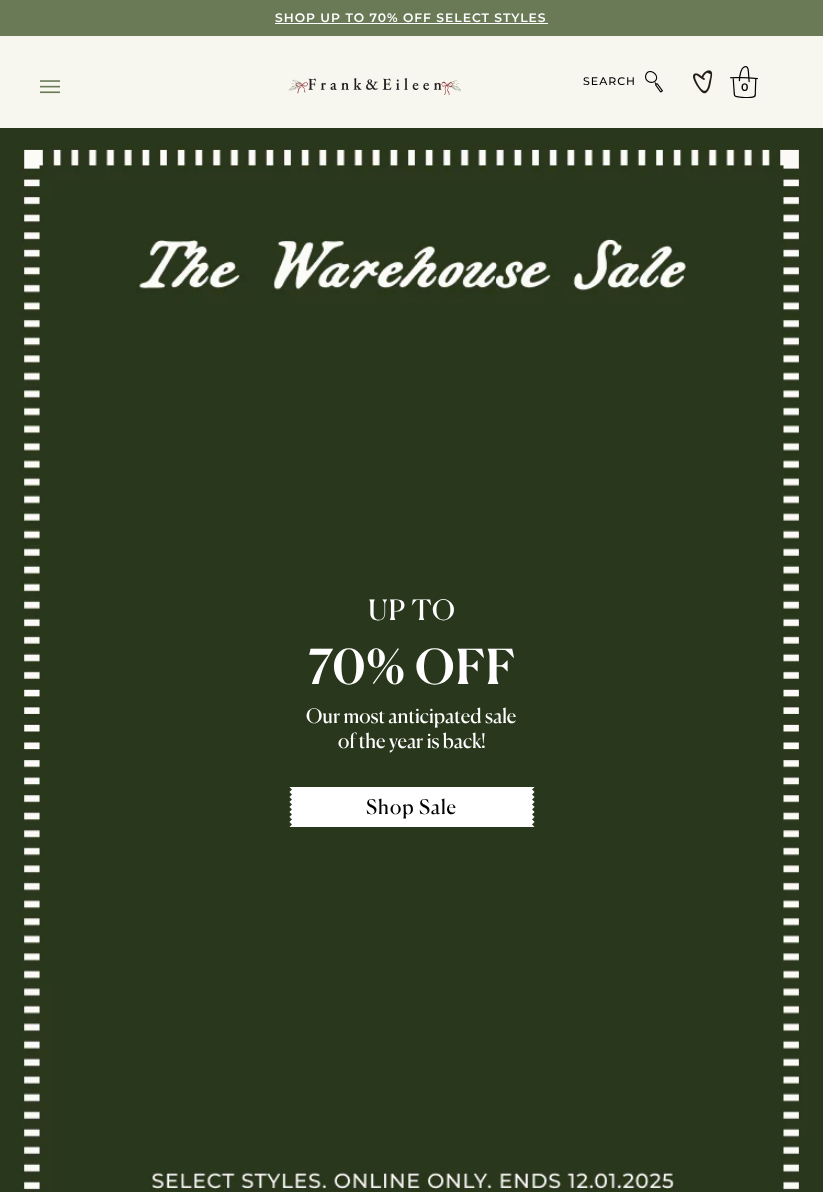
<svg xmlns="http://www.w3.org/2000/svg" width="823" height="1192">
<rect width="100%" height="100%" fill="#f7f6ef"/>
<rect width="823" height="36" fill="#6a7a57"/>
<text x="275" y="22" style="font-family:Montserrat;font-size:12.3px;font-weight:600;letter-spacing:1px;fill:#fff">SHOP UP TO 70% OFF SELECT STYLES</text>
<rect x="275" y="23" width="273" height="1" fill="#fff"/>
<image x="40" y="80" width="20" height="14" href="media/1.png"/>
<image x="288" y="78" width="173" height="17" href="media/2.png"/>
<text x="583" y="85" style="font-family:Montserrat;font-size:11px;font-weight:500;letter-spacing:1px;fill:#000">SEARCH</text>
<image x="645" y="71" width="18" height="22" href="media/3.png"/>
<image x="693" y="70" width="20" height="24" href="media/4.png"/>
<image x="730" y="66" width="28" height="32" href="media/5.png"/>
<text x="741" y="91" style="font-family:Montserrat;font-size:11px;font-weight:600;letter-spacing:1px;fill:#000">0</text>
<image x="0" y="128" width="823" height="1064" href="media/6.png"/>
<text x="368" y="620" style="font-family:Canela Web;font-size:28px;letter-spacing:1px;fill:#fff">UP TO</text>
<text x="308" y="684" style="font-family:Canela Web;font-size:48px;font-weight:500;letter-spacing:1px;fill:#fff">70% OFF</text>
<text x="306" y="723" style="font-family:Canela Web;font-size:20px;fill:#fff">Our most anticipated sale</text>
<text x="338" y="748" style="font-family:Canela Web;font-size:20px;fill:#fff">of the year is back!</text>
<rect x="292" y="787" width="240" height="40" fill="#fff"/>
<image x="289" y="787" width="3" height="40" href="media/7.png"/>
<text x="366" y="814" style="font-family:Canela Web;font-size:20px;letter-spacing:1px;fill:#000">Shop Sale</text>
<image x="532" y="787" width="3" height="40" href="media/8.png"/>
</svg>
